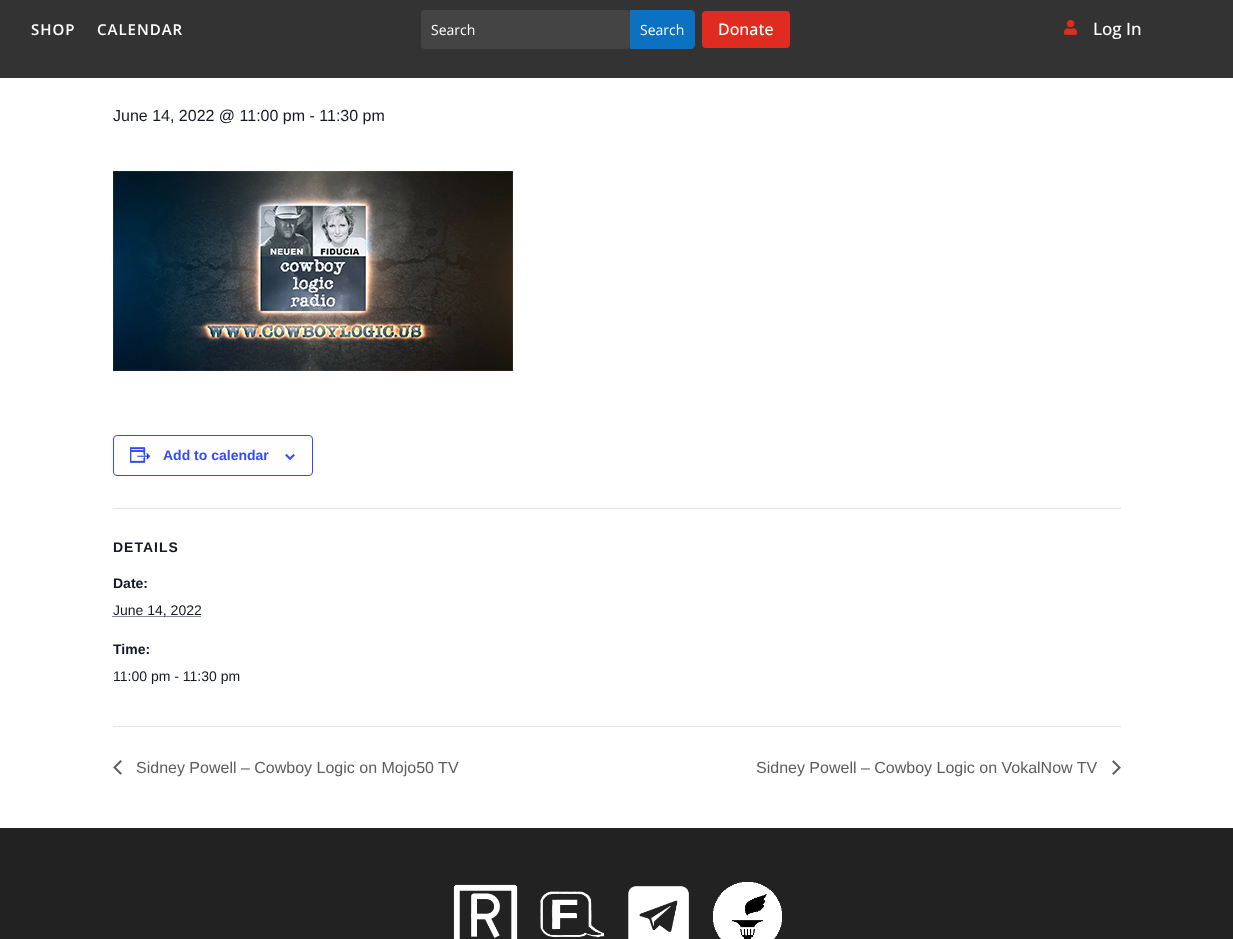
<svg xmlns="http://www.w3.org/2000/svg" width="1233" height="939">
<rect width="100%" height="100%" fill="#fff"/>
<rect width="1233" height="78" fill="#333"/>
<text x="31" y="35" style="font-family:Open Sans;font-size:15px;font-weight:600;letter-spacing:1px;fill:#fff">SHOP</text>
<text x="97" y="35" style="font-family:Open Sans;font-size:15px;font-weight:600;letter-spacing:1px;fill:#fff">CALENDAR</text>
<rect x="421" y="10" width="209" height="39" rx="4" fill="#444"/>
<text x="431" y="35" style="font-family:Open Sans;font-size:14px;fill:#fff">Search</text>
<path d="M630 10h61c2 0 4 2 4 4v31c0 2-2 4-4 4h-61z" fill="#0c71c3"/>
<text x="640" y="35" style="font-family:Open Sans;font-size:14px;fill:#fff">Search</text>
<rect x="702" y="11" width="88" height="37" rx="4" fill="#e02b20"/>
<text x="718" y="35" style="font-family:Open Sans;font-size:16px;font-weight:500;fill:#fff">Donate</text>
<image x="1064" y="19" width="14" height="16" href="media/1.png"/>
<text x="1093" y="35" style="font-family:Open Sans;font-size:17px;font-weight:500;fill:#fff">Log In</text>
<text x="113" y="121" style="font-family:Liberation Sans;font-size:16px;fill:#141827">June 14, 2022 @ 11:00 pm - 11:30 pm</text>
<image x="113" y="171" width="400" height="200" href="media/2.png"/>
<rect x="113.5" y="435.5" width="199" height="40" rx="3.5" fill="none" stroke="#334aff"/>
<image x="130" y="447" width="21" height="16" href="media/3.png"/>
<text x="163" y="460" style="font-family:Liberation Sans;font-size:14px;font-weight:bold;fill:#334aff">Add to calendar</text>
<image x="285" y="454" width="10" height="6" href="media/4.png"/>
<rect x="113" y="508" width="1008" height="1" fill="#e4e4e4"/>
<text x="113" y="552" style="font-family:Liberation Sans;font-size:14px;font-weight:bold;letter-spacing:1px;fill:#141827">DETAILS</text>
<text x="113" y="588" style="font-family:Liberation Sans;font-size:14px;font-weight:bold;fill:#141827">Date:</text>
<path d="M112.5 616.5h88.5" fill="none" stroke="#141827" stroke-dasharray="1 1"/>
<text x="113" y="615" style="font-family:Liberation Sans;font-size:14px;fill:#141827">June 14, 2022</text>
<text x="113" y="654" style="font-family:Liberation Sans;font-size:14px;font-weight:bold;fill:#141827">Time:</text>
<text x="113" y="681" style="font-family:Liberation Sans;font-size:14px;fill:#141827">11:00 pm - 11:30 pm</text>
<rect x="113" y="726" width="1008" height="1" fill="#e4e4e4"/>
<image x="113" y="760" width="9" height="15" href="media/5.png"/>
<text x="136" y="773" style="font-family:Liberation Sans;font-size:16px;fill:#5d5d5d">Sidney Powell – Cowboy Logic on Mojo50 TV</text>
<text x="756" y="773" style="font-family:Liberation Sans;font-size:16px;fill:#5d5d5d">Sidney Powell – Cowboy Logic on VokalNow TV</text>
<image x="1112" y="760" width="9" height="15" href="media/6.png"/>
<rect y="828" width="1233" height="111" fill="#222"/>
<image x="453" y="884" width="65" height="55" href="media/7.png"/>
<image x="540" y="891" width="64" height="47" href="media/8.png"/>
<image x="628" y="886" width="61" height="53" href="media/9.png"/>
<image x="713" y="882" width="69" height="57" href="media/10.png"/>
</svg>
